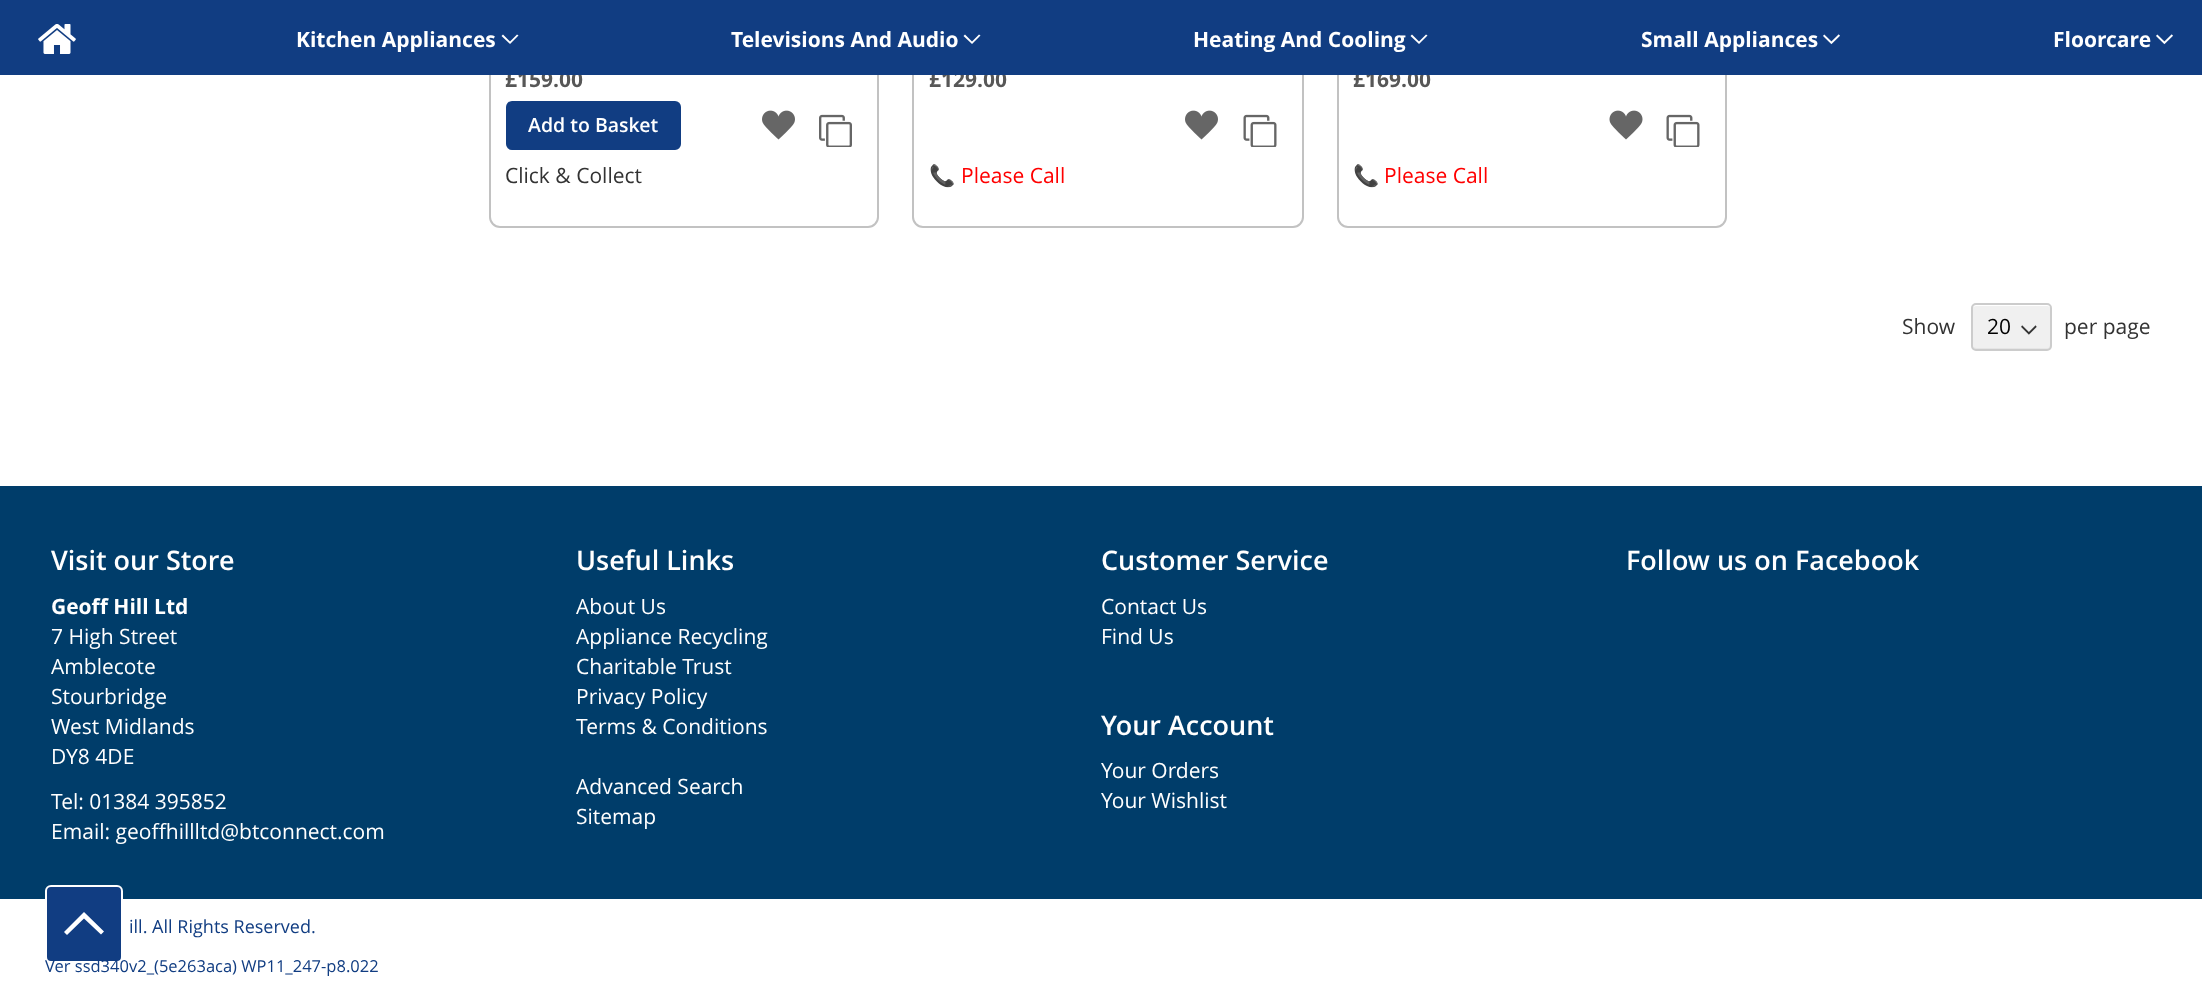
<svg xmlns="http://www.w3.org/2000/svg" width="2202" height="1008">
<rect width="100%" height="100%" fill="#fff"/>
<rect x="490" y="-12" width="388" height="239" rx="10" fill="none" stroke="#c2c2c2" stroke-width="2"/>
<text x="505" y="87" style="font-family:Open Sans;font-size:21px;font-weight:bold;fill:#575757">£159.00</text>
<rect x="913" y="-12" width="390" height="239" rx="10" fill="none" stroke="#c2c2c2" stroke-width="2"/>
<text x="929" y="87" style="font-family:Open Sans;font-size:21px;font-weight:bold;fill:#575757">£129.00</text>
<rect x="1338" y="-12" width="388" height="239" rx="10" fill="none" stroke="#c2c2c2" stroke-width="2"/>
<text x="1353" y="87" style="font-family:Open Sans;font-size:21px;font-weight:bold;fill:#575757">£169.00</text>
<rect width="2202" height="75" fill="#113d82"/>
<image x="38" y="24" width="38" height="30" href="media/1.png"/>
<text x="296" y="47" style="font-family:Open Sans;font-size:21px;font-weight:bold;fill:#fff">Kitchen Appliances</text>
<path d="M510 41.5l-7-7l-1.5 1.5l8.5 8l8.5-8.5l-1.5-1z" fill="#fff"/>
<text x="731" y="47" style="font-family:Open Sans;font-size:21px;font-weight:bold;fill:#fff">Televisions And Audio</text>
<path d="M972 41.5l-7-7l-1.5 1.5l8.5 8l8.5-8.5l-1.5-1z" fill="#fff"/>
<text x="1193" y="47" style="font-family:Open Sans;font-size:21px;font-weight:bold;fill:#fff">Heating And Cooling</text>
<path d="M1419 41.5l-7-7l-1.5 1.5l8.5 8l8.5-8.5l-1.5-1z" fill="#fff"/>
<text x="1641" y="47" style="font-family:Open Sans;font-size:21px;font-weight:bold;fill:#fff">Small Appliances</text>
<image x="1823" y="34" width="17" height="11" href="media/2.png"/>
<text x="2053" y="47" style="font-family:Open Sans;font-size:21px;font-weight:bold;fill:#fff">Floorcare</text>
<image x="2156" y="34" width="17" height="11" href="media/2.png"/>
<rect x="506" y="101" width="175" height="49" rx="6" fill="#113d82"/>
<text x="528" y="132" style="font-family:Open Sans;font-size:19.5px;font-weight:600;fill:#fff">Add to Basket</text>
<image x="762" y="110" width="33" height="30" href="media/3.png"/>
<image x="819" y="114" width="33" height="33" href="media/4.png"/>
<text x="505" y="183" style="font-family:Open Sans;font-size:21px;fill:#333">Click &amp; Collect</text>
<image x="1185" y="110" width="33" height="30" href="media/3.png"/>
<image x="1243" y="114" width="34" height="33" href="media/5.png"/>
<text x="929" y="183" style="font-family:Noto Color Emoji;font-size:21px;fill:#f00">📞</text>
<text x="961" y="183" style="font-family:Open Sans;font-size:21px;fill:#f00">Please Call</text>
<image x="1609" y="110" width="34" height="30" href="media/6.png"/>
<image x="1666" y="114" width="34" height="33" href="media/5.png"/>
<text x="1353" y="183" style="font-family:Noto Color Emoji;font-size:21px;fill:#f00">📞</text>
<text x="1384" y="183" style="font-family:Open Sans;font-size:21px;fill:#f00">Please Call</text>
<text x="1902" y="334" style="font-family:Open Sans;font-size:21px;fill:#333">Show</text>
<rect x="1973" y="305" width="78" height="45" rx="3" fill="#f0f0f0"/>
<image x="2021" y="325" width="16" height="10" href="media/7.png"/>
<path d="M1973 347c0 2 1 3 3 3h72c2 0 3-1 3-3v-39c0-1 0-2-1-2v32c0 13 1 10-14 10h-60z" fill="#cccccc4d"/>
<path d="M1976 306h60c18 0 14-2 14 16v27c2-1 1-7 1-9v-12c0-30 5-23-27-23h-49l-2 2z" fill="#fff"/>
<rect x="1972" y="304" width="79" height="46" rx="4" fill="none" stroke="#ccc" stroke-width="2"/>
<text x="1987" y="334" style="font-family:Open Sans;font-size:21px;fill:#000">20</text>
<text x="2064" y="334" style="font-family:Open Sans;font-size:21px;fill:#333">per page</text>
<rect y="486" width="2202" height="413" fill="#003d6a"/>
<text x="51" y="570" style="font-family:Open Sans;font-size:27px;font-weight:600;fill:#fff">Visit our Store</text>
<text x="51" y="614" style="font-family:Open Sans;font-size:21px;font-weight:bold;fill:#fff">Geoff Hill Ltd</text>
<text x="51" y="644" style="font-family:Open Sans;font-size:21px;fill:#fff">7 High Street</text>
<text x="51" y="674" style="font-family:Open Sans;font-size:21px;fill:#fff">Amblecote</text>
<text x="51" y="704" style="font-family:Open Sans;font-size:21px;fill:#fff">Stourbridge</text>
<text x="51" y="734" style="font-family:Open Sans;font-size:21px;fill:#fff">West Midlands</text>
<text x="51" y="764" style="font-family:Open Sans;font-size:21px;fill:#fff">DY8 4DE</text>
<text x="51" y="809" style="font-family:Open Sans;font-size:21px;fill:#fff">Tel: 01384 395852</text>
<text x="51" y="839" style="font-family:Open Sans;font-size:21px;fill:#fff">Email: geoffhillltd@btconnect.com</text>
<text x="576" y="570" style="font-family:Open Sans;font-size:27px;font-weight:600;fill:#fff">Useful Links</text>
<text x="576" y="614" style="font-family:Open Sans;font-size:21px;fill:#fff">About Us</text>
<text x="576" y="644" style="font-family:Open Sans;font-size:21px;fill:#fff">Appliance Recycling</text>
<text x="576" y="674" style="font-family:Open Sans;font-size:21px;fill:#fff">Charitable Trust</text>
<text x="576" y="704" style="font-family:Open Sans;font-size:21px;fill:#fff">Privacy Policy</text>
<text x="576" y="734" style="font-family:Open Sans;font-size:21px;fill:#fff">Terms &amp; Conditions</text>
<text x="576" y="794" style="font-family:Open Sans;font-size:21px;fill:#fff">Advanced Search</text>
<text x="576" y="824" style="font-family:Open Sans;font-size:21px;fill:#fff">Sitemap</text>
<text x="1101" y="570" style="font-family:Open Sans;font-size:27px;font-weight:600;fill:#fff">Customer Service</text>
<text x="1101" y="614" style="font-family:Open Sans;font-size:21px;fill:#fff">Contact Us</text>
<text x="1101" y="644" style="font-family:Open Sans;font-size:21px;fill:#fff">Find Us</text>
<text x="1101" y="735" style="font-family:Open Sans;font-size:27px;font-weight:600;fill:#fff">Your Account</text>
<text x="1101" y="778" style="font-family:Open Sans;font-size:21px;fill:#fff">Your Orders</text>
<text x="1101" y="808" style="font-family:Open Sans;font-size:21px;fill:#fff">Your Wishlist</text>
<text x="1626" y="570" style="font-family:Open Sans;font-size:27px;font-weight:600;fill:#fff">Follow us on Facebook</text>
<rect x="46" y="886" width="76" height="76" rx="5" fill="#113d82" stroke="#fff" stroke-width="2"/>
<path d="M84 918.5l17 16l3-3l-20-19.5l-20 20l3 3z" fill="#fff"/>
<text x="129" y="933" style="font-family:Open Sans;font-size:18px;fill:#113d82">ill. All Rights Reserved.</text>
<text x="45" y="972" style="font-family:Open Sans;font-size:16.5px;fill:#113d82">Ver ssd340v2_(5e263aca) WP11_247-p8.022</text>
</svg>
